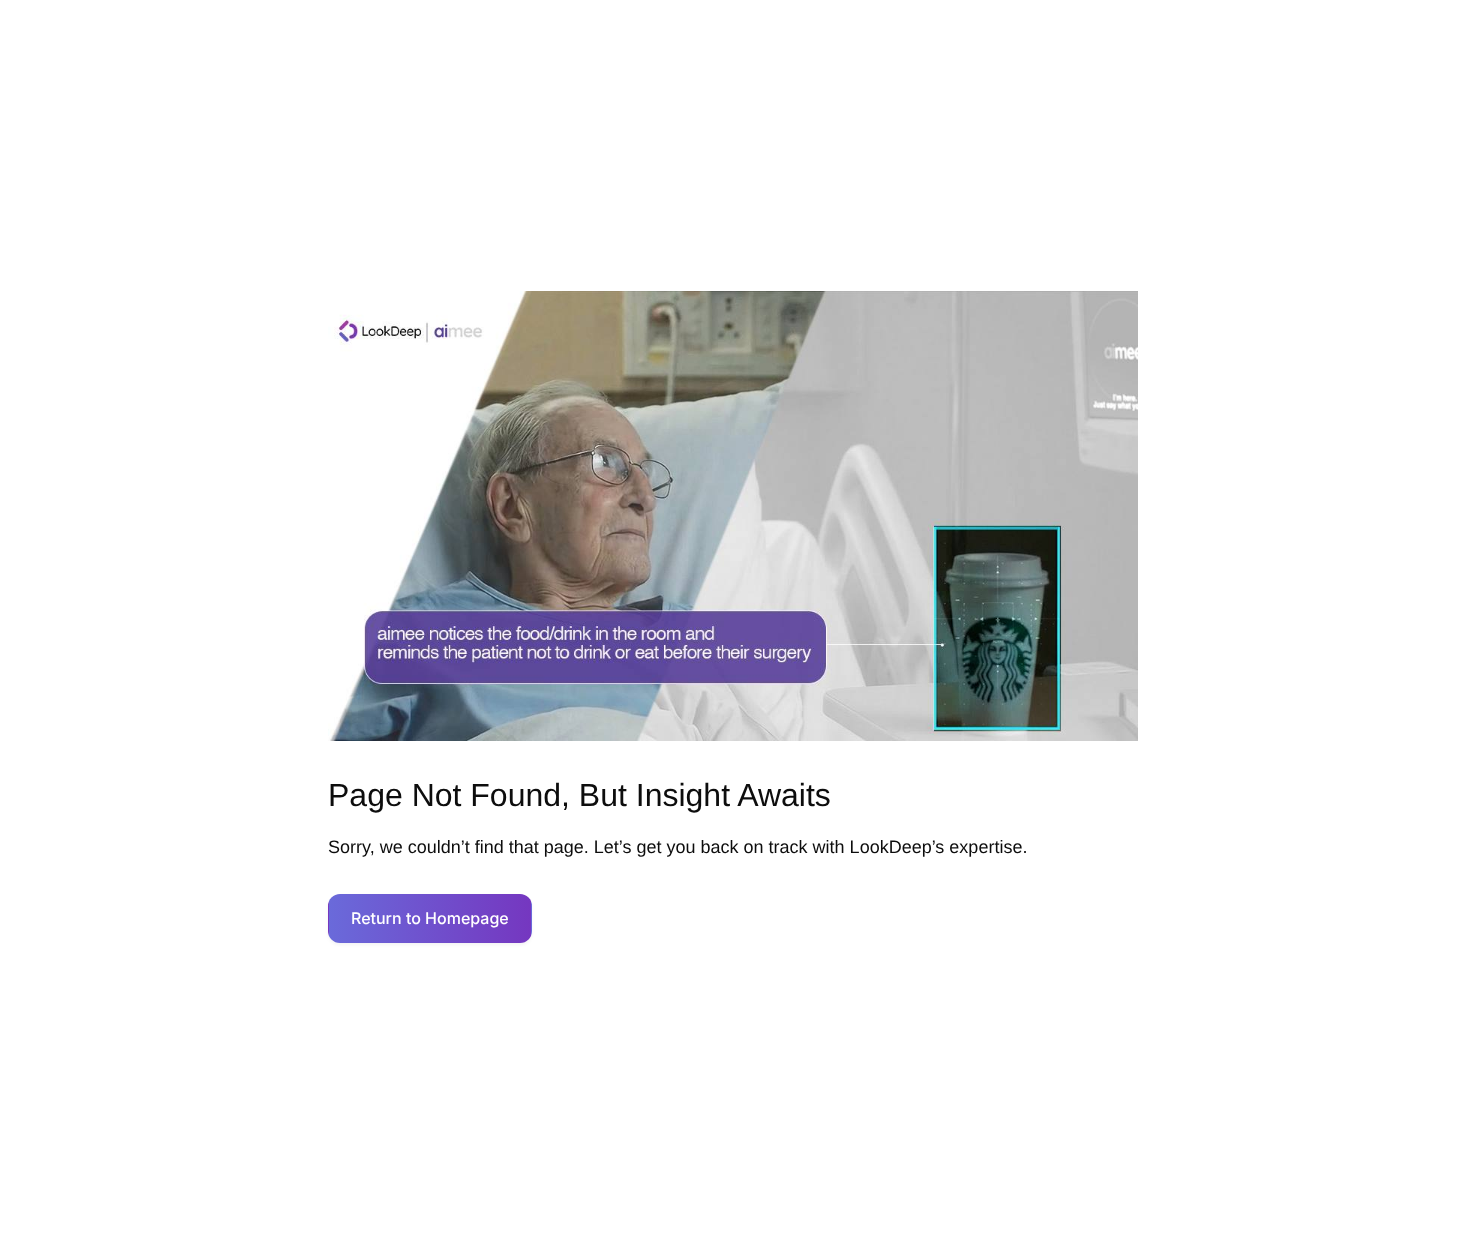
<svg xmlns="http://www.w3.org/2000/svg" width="1466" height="1234">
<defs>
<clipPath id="clip1"><rect x="328" y="894" width="204" height="49" rx="12"/></clipPath>
<linearGradient id="g1" gradientUnits="userSpaceOnUse" x1="127" y1="919" x2="329" y2="919"><stop offset="0" stop-color="#6a6ada"/><stop offset="1" stop-color="#7537c0"/></linearGradient>
<linearGradient id="g2" gradientUnits="userSpaceOnUse" x1="329" y1="919" x2="531" y2="919"><stop offset="0" stop-color="#6a6ada"/><stop offset="1" stop-color="#7537c0"/></linearGradient>
<linearGradient id="g3" gradientUnits="userSpaceOnUse" x1="531" y1="919" x2="733" y2="919"><stop offset="0" stop-color="#6a6ada"/><stop offset="1" stop-color="#7537c0"/></linearGradient>
</defs>
<rect width="100%" height="100%" fill="#fff"/>
<image x="328" y="291" width="810" height="450" href="media/1.png"/>
<text x="328" y="806" style="font-family:Liberation Sans;font-size:32px;fill:#0d0d0d">Page Not Found, But Insight Awaits</text>
<text x="328" y="853" style="font-family:Liberation Sans;font-size:18px;fill:#0d0d0d">Sorry, we couldn’t find that page. Let’s get you back on track with LookDeep’s expertise.</text>
<rect x="328" y="896" width="204" height="49" rx="12" fill="#1018280d" filter="blur(1.5px)"/>
<g clip-path="url(#clip1)">
<rect x="328" y="894" width="1" height="49" fill="url(#g1)"/>
<rect x="329" y="894" width="202" height="49" fill="url(#g2)"/>
<rect x="531" y="894" width="1" height="49" fill="url(#g3)"/>
</g>
<text x="351" y="924" style="font-family:Inter;font-size:16px;font-weight:500;fill:#fff">Return to Homepage</text>
</svg>
